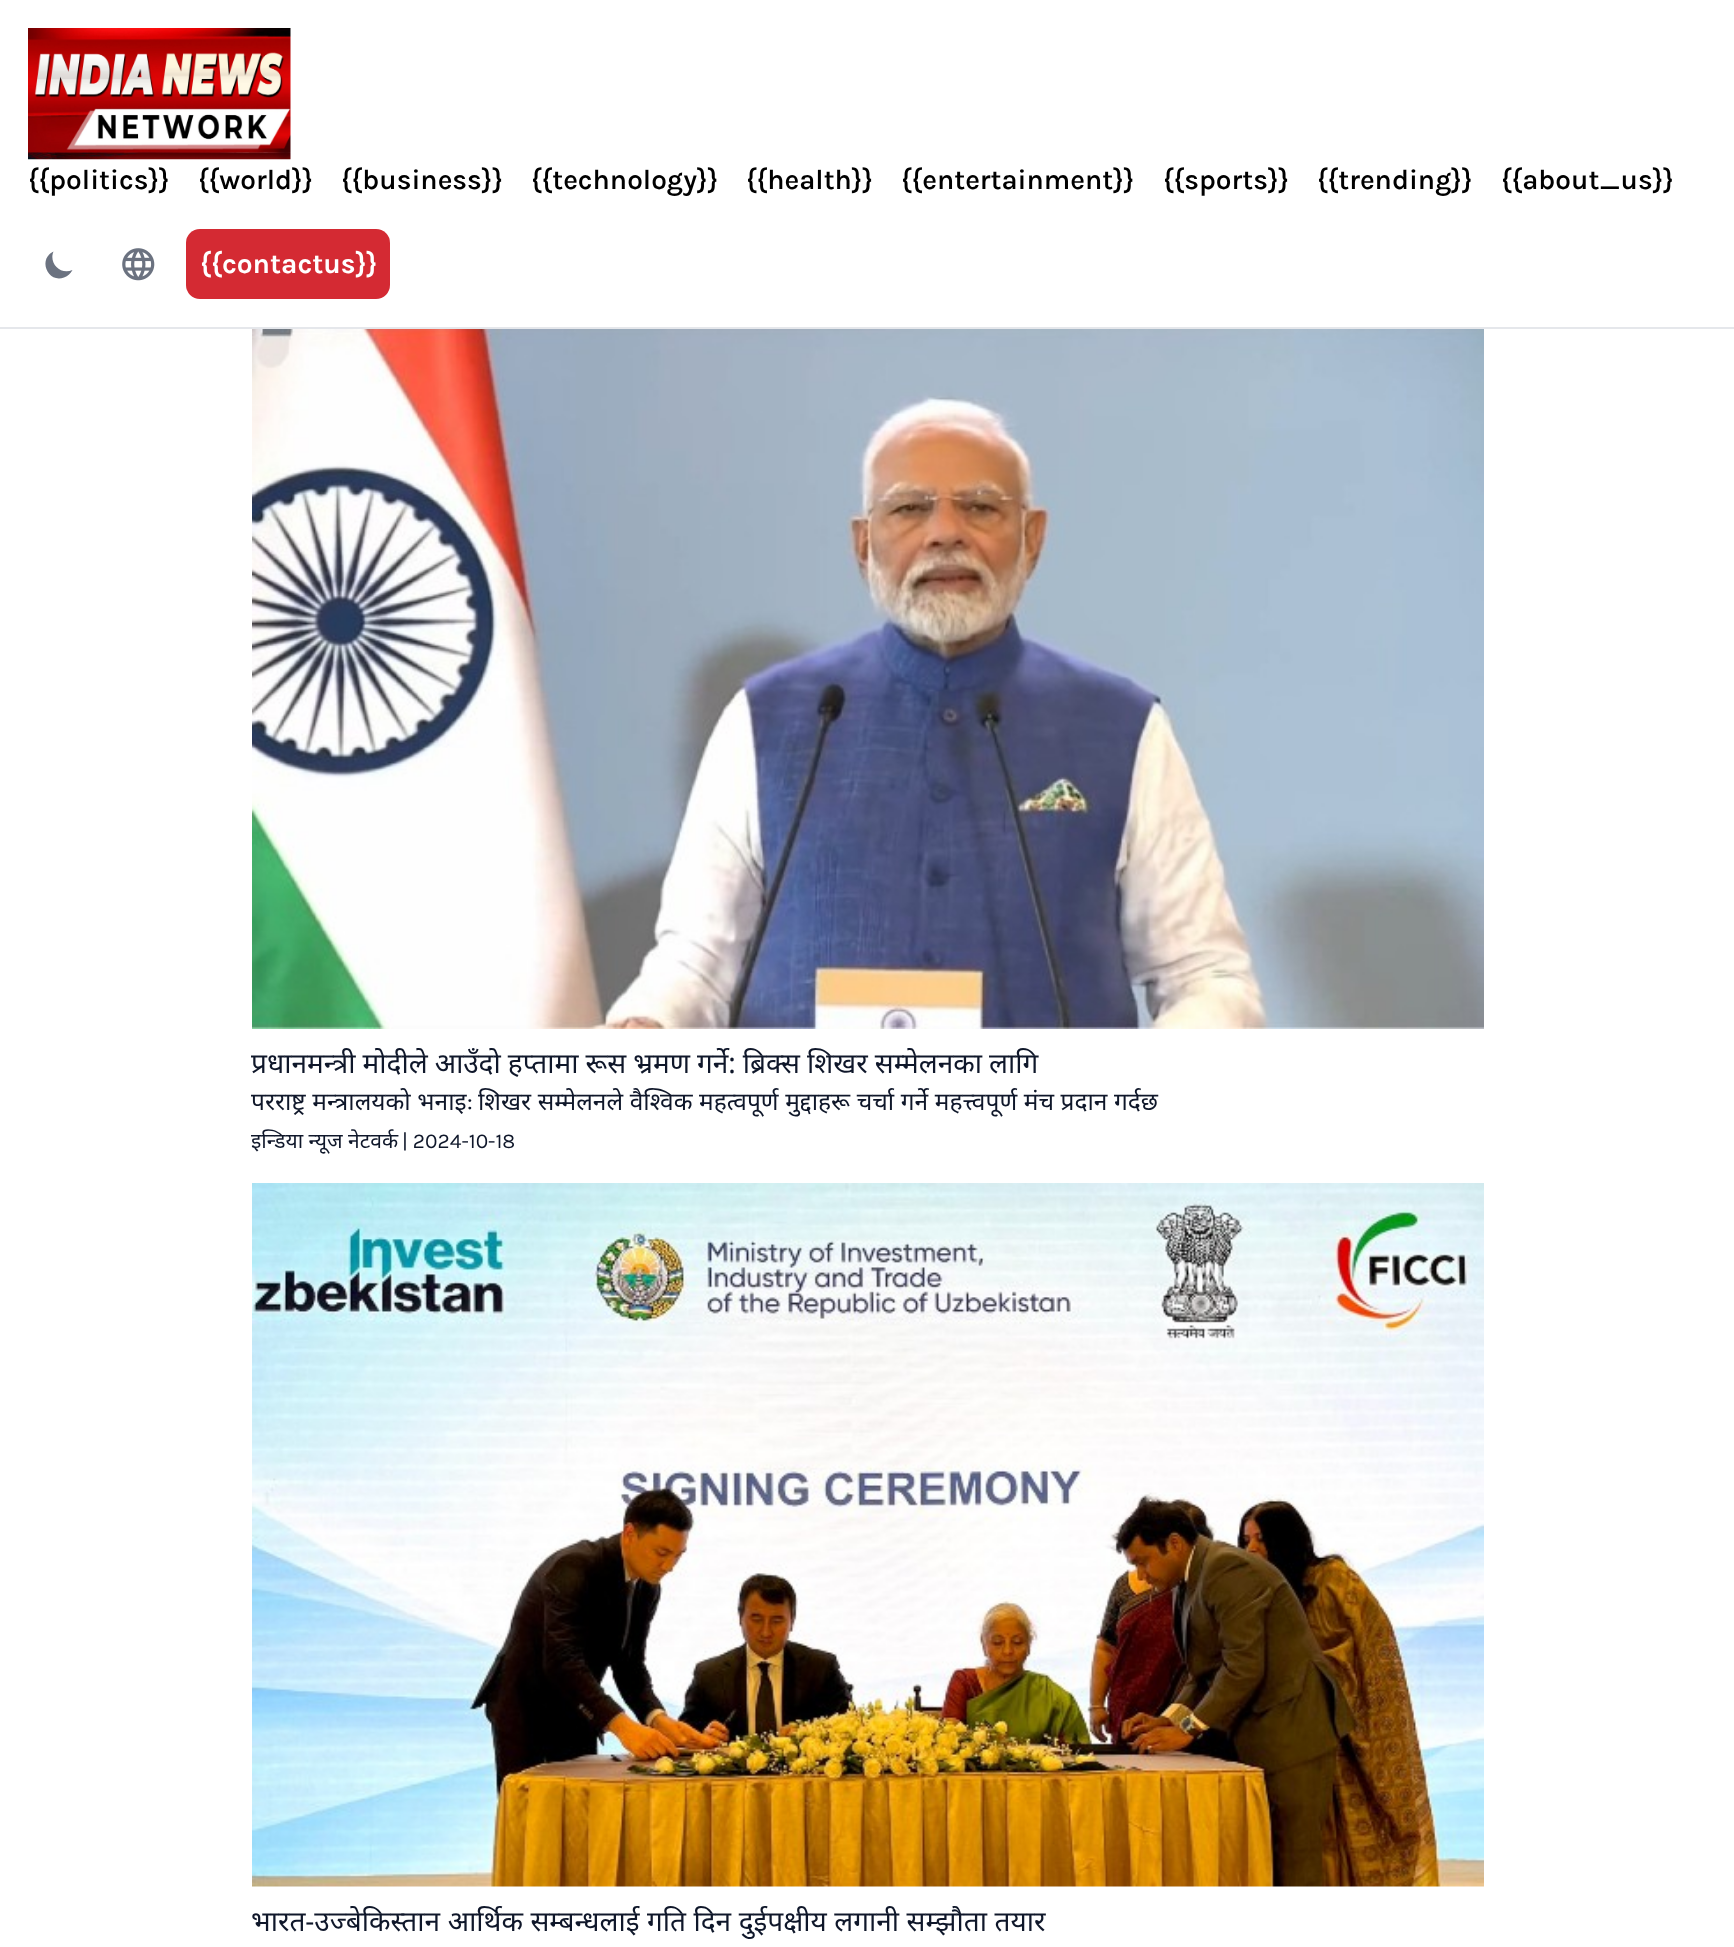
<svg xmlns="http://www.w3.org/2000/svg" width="1734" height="1947">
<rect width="100%" height="100%" fill="#fff"/>
<rect y="327" width="1734" height="2" fill="#e5e7eb"/>
<image x="28" y="28" width="263" height="132" href="media/1.png"/>
<text x="28" y="189" style="font-family:Karla;font-size:28px;font-weight:600;fill:#000">{{politics}}</text>
<text x="198" y="189" style="font-family:Karla;font-size:28px;font-weight:600;fill:#000">{{world}}</text>
<text x="341" y="189" style="font-family:Karla;font-size:28px;font-weight:600;fill:#000">{{business}}</text>
<text x="531" y="189" style="font-family:Karla;font-size:28px;font-weight:600;fill:#000">{{technology}}</text>
<text x="746" y="189" style="font-family:Karla;font-size:28px;font-weight:600;fill:#000">{{health}}</text>
<text x="901" y="189" style="font-family:Karla;font-size:28px;font-weight:600;fill:#000">{{entertainment}}</text>
<text x="1163" y="189" style="font-family:Karla;font-size:28px;font-weight:600;fill:#000">{{sports}}</text>
<text x="1317" y="189" style="font-family:Karla;font-size:28px;font-weight:600;fill:#000">{{trending}}</text>
<text x="1501" y="189" style="font-family:Karla;font-size:28px;font-weight:600;fill:#000">{{about_us}}</text>
<path d="M72.5 270c-12 5.5-24-7-19-18.5c-16 7.5-6 32 10.5 26c4-1.5 6.5-4 8.5-7.5z" fill="#6b7280"/>
<image x="122" y="248" width="33" height="33" href="media/2.png"/>
<rect x="186" y="229" width="204" height="70" rx="14" fill="#d42a33"/>
<text x="200" y="273" style="font-family:Karla;font-size:28px;font-weight:bold;fill:#fff">{{contactus}}</text>
<image x="252" y="329" width="1232" height="700" href="media/3.png"/>
<text x="251" y="1073" word-spacing="-0.25" style="font-family:Noto Sans;font-size:28px;fill:#0f172a">प्रधानमन्त्री मोदीले आउँदो हप्तामा रूस भ्रमण गर्ने: ब्रिक्स शिखर सम्मेलनका लागि</text>
<text x="251" y="1110" word-spacing="0.25" style="font-family:Noto Sans;font-size:24.5px;fill:#0f172a">परराष्ट्र मन्त्रालयको भनाइ</text>
<text x="467" y="1110" style="font-family:Karla;font-size:24.5px;fill:#0f172a">:</text>
<text x="478" y="1110" word-spacing="0.25" style="font-family:Noto Sans;font-size:24.5px;fill:#0f172a">शिखर सम्मेलनले वैश्विक महत्वपूर्ण मुद्दाहरू चर्चा गर्ने महत्त्वपूर्ण मंच प्रदान गर्दछ</text>
<text x="251" y="1148" style="font-family:Noto Sans;font-size:21px;fill:#0f172a">इन्डिया न्यूज नेटवर्क</text>
<text x="402" y="1148" style="font-family:Karla;font-size:21px;fill:#0f172a">| 2024-10-18</text>
<image x="252" y="1183" width="1232" height="704" href="media/4.png"/>
<text x="251" y="1931" word-spacing="0.25" style="font-family:Noto Sans;font-size:28px;fill:#0f172a">भारत-उज्बेकिस्तान आर्थिक सम्बन्धलाई गति दिन दुईपक्षीय लगानी सम्झौता तयार</text>
</svg>
